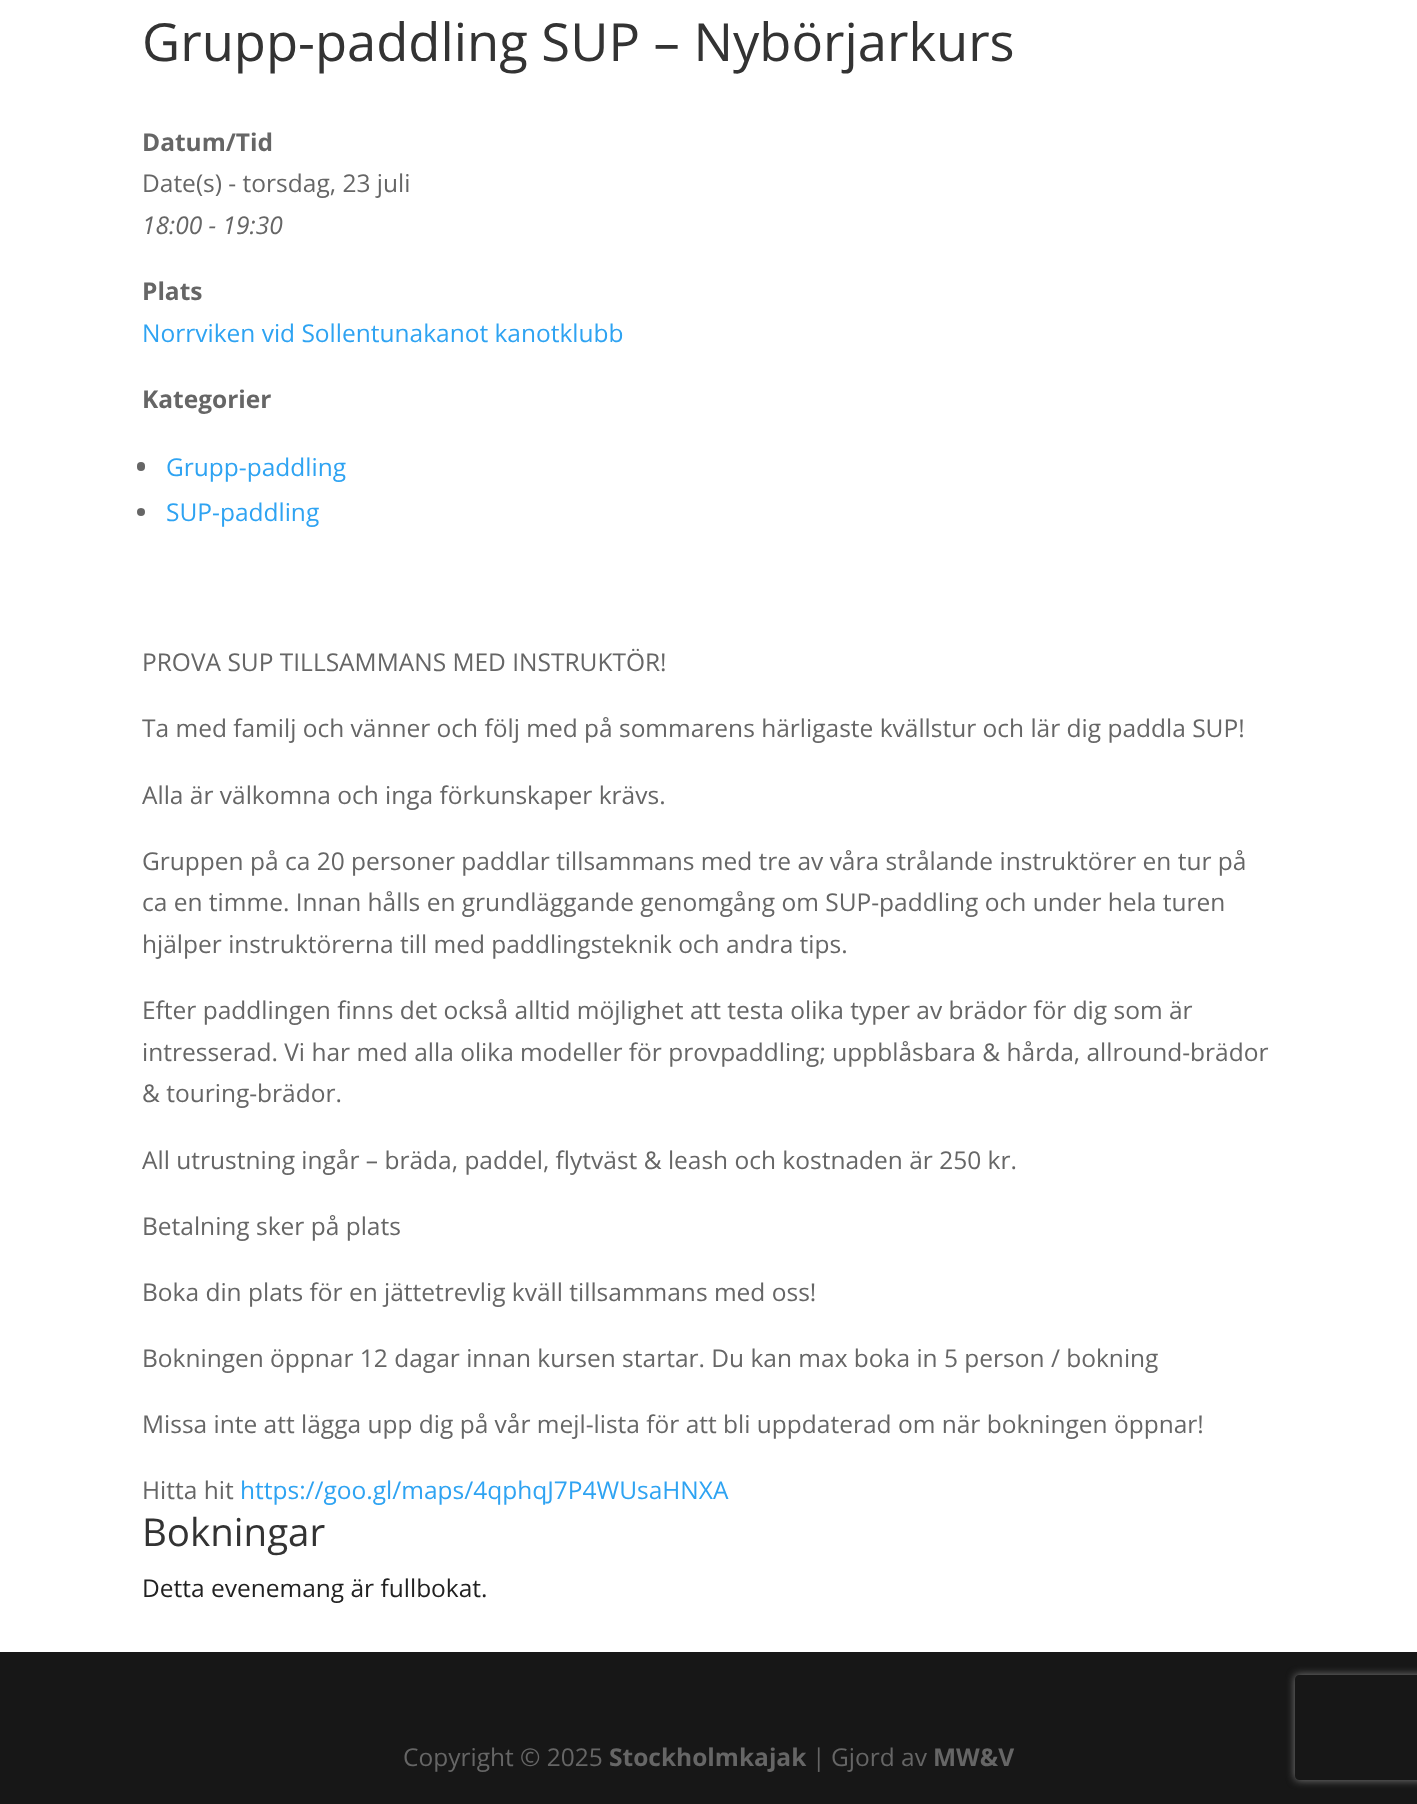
<svg xmlns="http://www.w3.org/2000/svg" width="1417" height="1804">
<defs>
<clipPath id="clip1"><path d="M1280 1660h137v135h-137zm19 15h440c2 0 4 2 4 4v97c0 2-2 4-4 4h-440c-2 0-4-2-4-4v-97c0-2 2-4 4-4z" clip-rule="evenodd"/></clipPath>
</defs>
<rect width="100%" height="100%" fill="#fff"/>
<text x="142" y="61" style="font-family:Open Sans;font-size:52.5px;fill:#333">Grupp-paddling SUP – Nybörjarkurs</text>
<text x="142" y="151" style="font-family:Open Sans;font-size:24.5px;font-weight:bold;fill:#666">Datum/Tid</text>
<text x="142" y="192" style="font-family:Open Sans;font-size:24.5px;fill:#666">Date(s) - torsdag, 23 juli</text>
<text x="142" y="234" style="font-family:Open Sans;font-size:24.5px;font-style:italic;fill:#666">18:00 - 19:30</text>
<text x="142" y="300" style="font-family:Open Sans;font-size:24.5px;font-weight:bold;fill:#666">Plats</text>
<text x="142" y="342" style="font-family:Open Sans;font-size:24.5px;fill:#2ea3f2">Norrviken vid Sollentunakanot kanotklubb</text>
<text x="142" y="408" style="font-family:Open Sans;font-size:24.5px;font-weight:bold;fill:#666">Kategorier</text>
<rect x="137" y="462" width="8" height="9" rx="4" fill="#666"/>
<text x="166" y="476" style="font-family:Open Sans;font-size:24.5px;fill:#2ea3f2">Grupp-paddling</text>
<circle cx="141" cy="512" r="4" fill="#666"/>
<text x="166" y="521" style="font-family:Open Sans;font-size:24.5px;fill:#2ea3f2">SUP-paddling</text>
<text x="142" y="671" style="font-family:Open Sans;font-size:24.5px;fill:#666">PROVA SUP TILLSAMMANS MED INSTRUKTÖR!</text>
<text x="142" y="737" style="font-family:Open Sans;font-size:24.5px;fill:#666">Ta med familj och vänner och följ med på sommarens härligaste kvällstur och lär dig paddla SUP!</text>
<text x="142" y="804" style="font-family:Open Sans;font-size:24.5px;fill:#666">Alla är välkomna och inga förkunskaper krävs.</text>
<text x="142" y="870" style="font-family:Open Sans;font-size:24.5px;fill:#666">Gruppen på ca 20 personer paddlar tillsammans med tre av våra strålande instruktörer en tur på</text>
<text x="142" y="911" style="font-family:Open Sans;font-size:24.5px;fill:#666">ca en timme. Innan hålls en grundläggande genomgång om SUP-paddling och under hela turen</text>
<text x="142" y="953" style="font-family:Open Sans;font-size:24.5px;fill:#666">hjälper instruktörerna till med paddlingsteknik och andra tips.</text>
<text x="142" y="1019" style="font-family:Open Sans;font-size:24.5px;fill:#666">Efter paddlingen finns det också alltid möjlighet att testa olika typer av brädor för dig som är</text>
<text x="142" y="1061" style="font-family:Open Sans;font-size:24.5px;fill:#666">intresserad. Vi har med alla olika modeller för provpaddling; uppblåsbara &amp; hårda, allround-brädor</text>
<text x="142" y="1102" style="font-family:Open Sans;font-size:24.5px;fill:#666">&amp; touring-brädor.</text>
<text x="142" y="1169" style="font-family:Open Sans;font-size:24.5px;fill:#666">All utrustning ingår – bräda, paddel, flytväst &amp; leash och kostnaden är 250 kr.</text>
<text x="142" y="1235" style="font-family:Open Sans;font-size:24.5px;fill:#666">Betalning sker på plats</text>
<text x="142" y="1301" style="font-family:Open Sans;font-size:24.5px;fill:#666">Boka din plats för en jättetrevlig kväll tillsammans med oss!</text>
<text x="142" y="1367" style="font-family:Open Sans;font-size:24.5px;fill:#666">Bokningen öppnar 12 dagar innan kursen startar. Du kan max boka in 5 person / bokning</text>
<text x="142" y="1433" style="font-family:Open Sans;font-size:24.5px;fill:#666">Missa inte att lägga upp dig på vår mejl-lista för att bli uppdaterad om när bokningen öppnar!</text>
<text x="142" y="1499" style="font-family:Open Sans;font-size:24.5px;fill:#666">Hitta hit</text>
<text x="240" y="1499" style="font-family:Open Sans;font-size:24.5px;fill:#2ea3f2">https://goo.gl/maps/4qphqJ7P4WUsaHNXA</text>
<text x="142" y="1546" style="font-family:Open Sans;font-size:38.5px;fill:#333">Bokningar</text>
<text x="142" y="1597" style="font-family:Open Sans;font-size:24.5px;fill:#212121">Detta evenemang är fullbokat.</text>
<rect y="1652" width="1417" height="152" fill="#171717"/>
<text x="403" y="1766" style="font-family:Open Sans;font-size:24.5px;fill:#666">Copyright © 2025</text>
<text x="609" y="1766" style="font-family:Open Sans;font-size:24.5px;font-weight:bold;fill:#666">Stockholmkajak</text>
<text x="812" y="1766" style="font-family:Open Sans;font-size:24.5px;fill:#666">|</text>
<text x="831" y="1766" style="font-family:Open Sans;font-size:24.5px;fill:#666">Gjord av</text>
<text x="933" y="1766" style="font-family:Open Sans;font-size:24.5px;font-weight:bold;fill:#666">MW&amp;V</text>
<g clip-path="url(#clip1)">
<rect x="1295" y="1675" width="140" height="105" rx="4" fill="#808080" filter="blur(4.5px)"/>
</g>
</svg>
